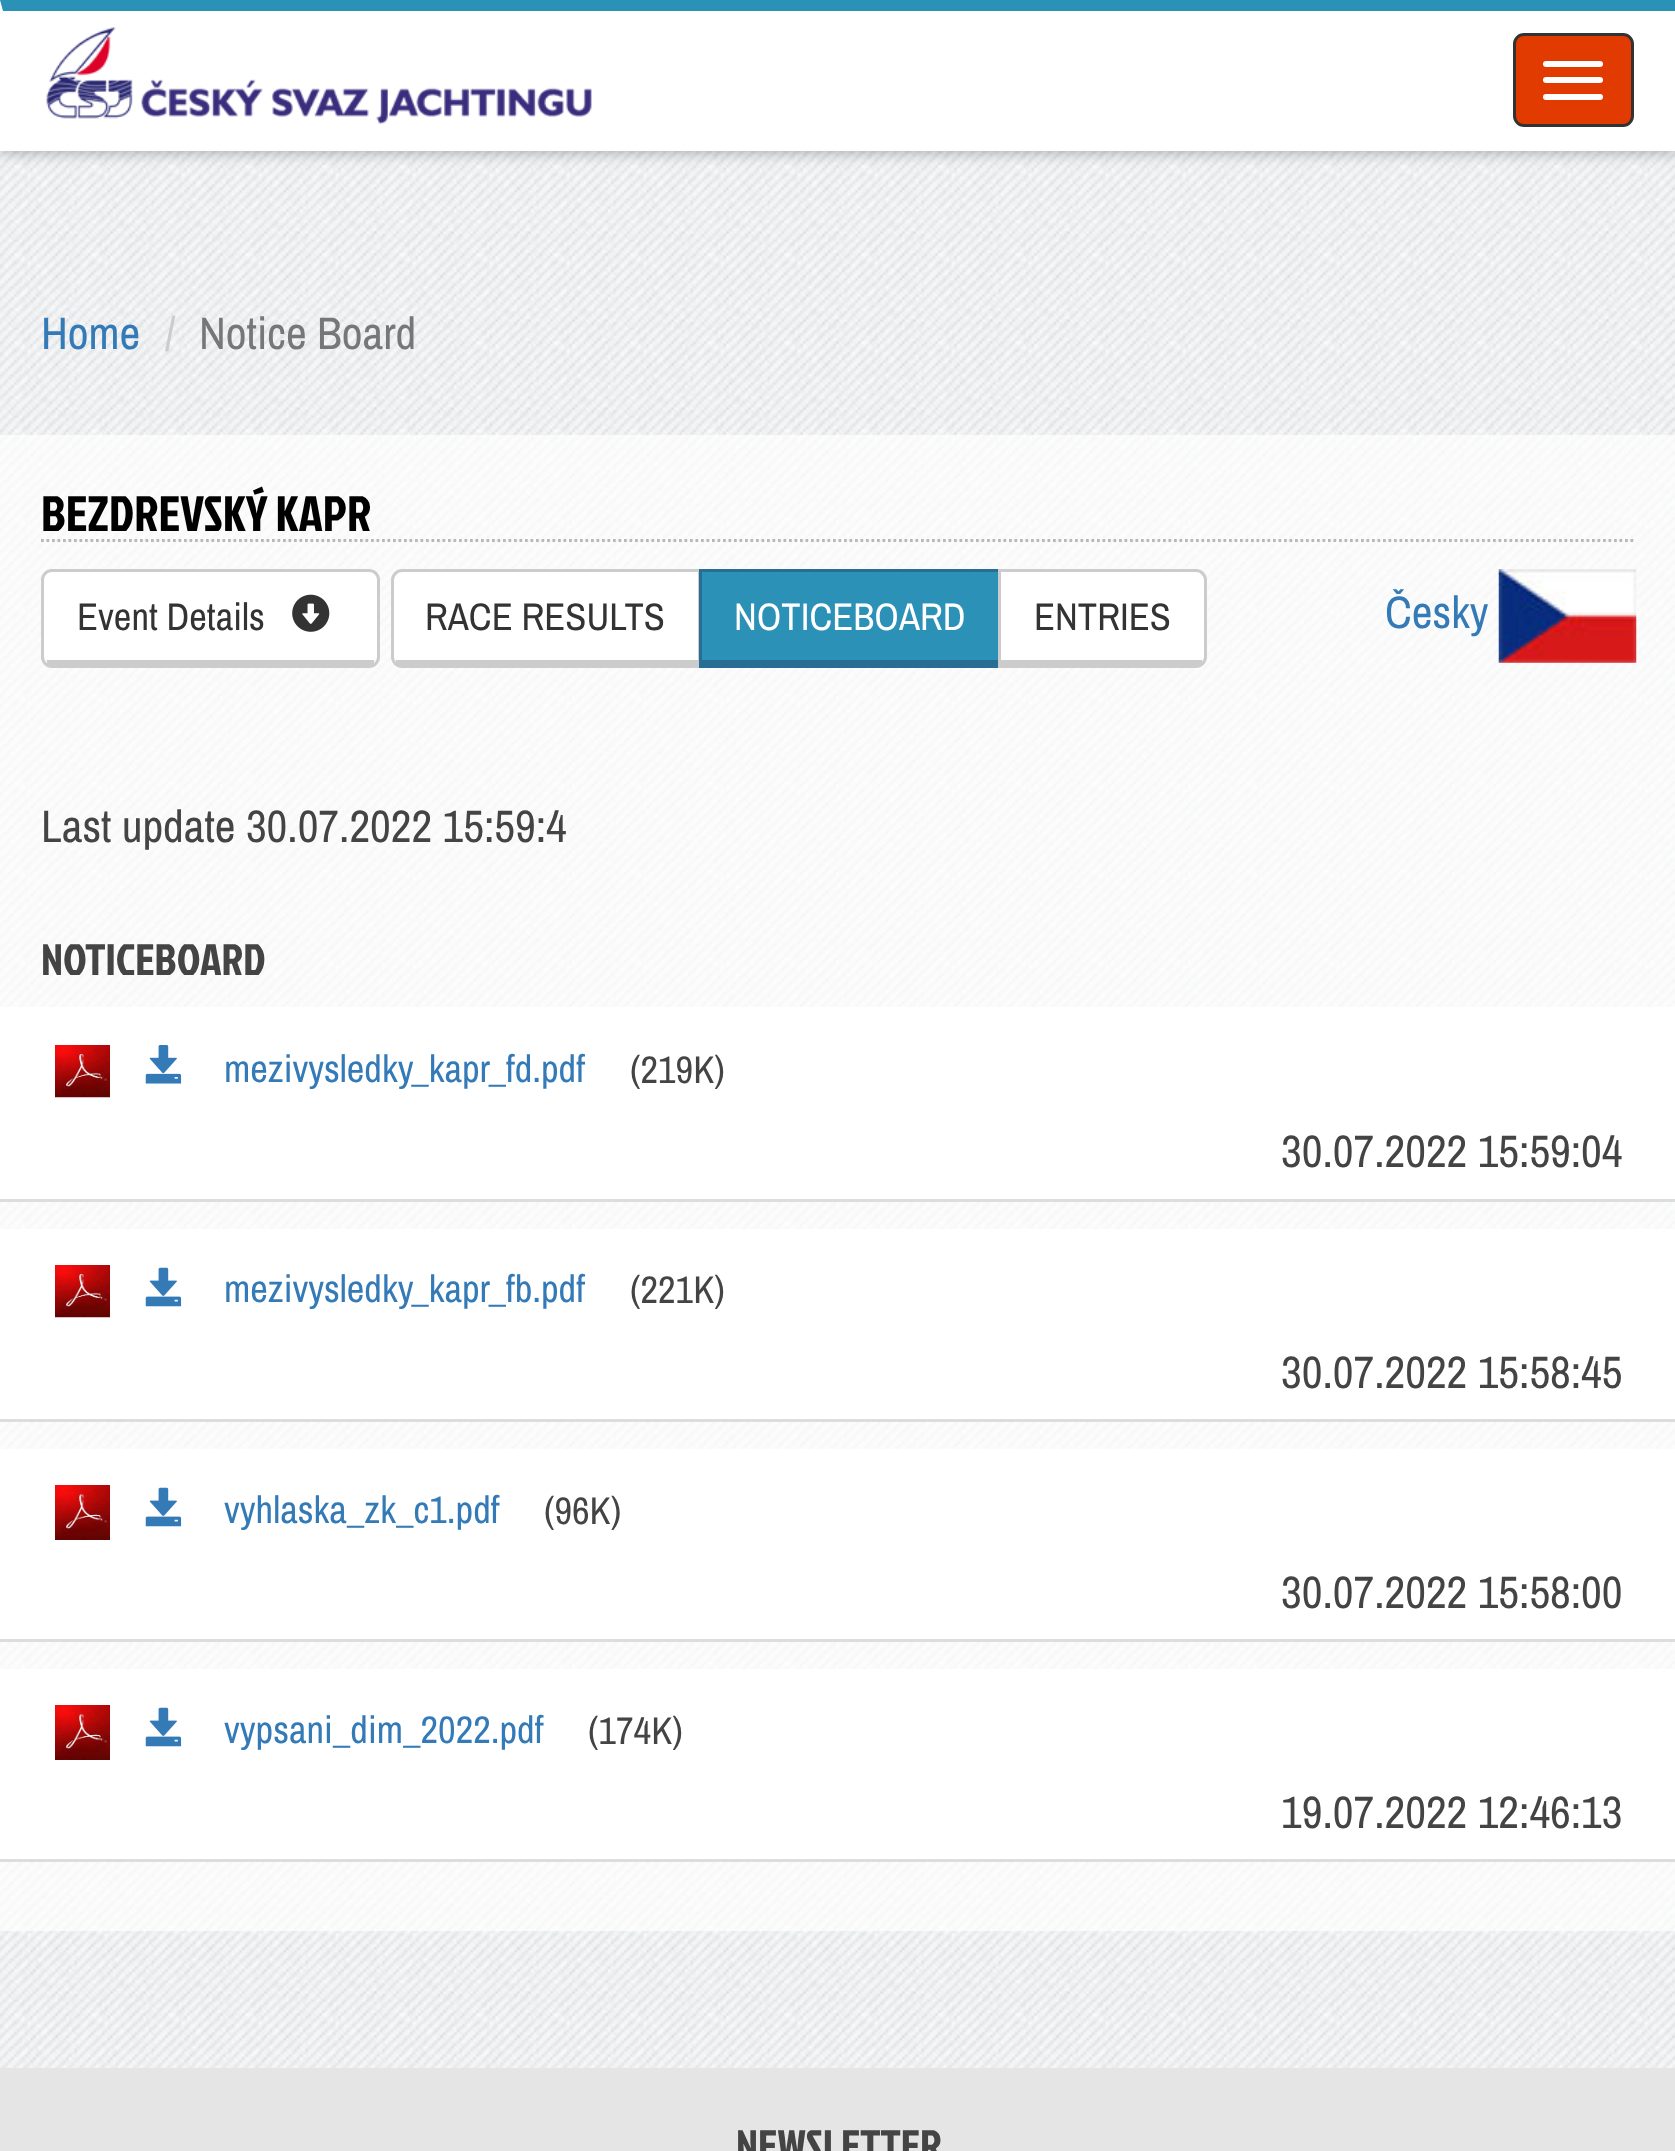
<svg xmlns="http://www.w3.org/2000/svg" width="1675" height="2151">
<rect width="100%" height="100%" fill="#fff"/>
<image x="0" y="151" width="1675" height="1917" href="media/1.png"/>
<rect width="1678" height="151" fill="#00000059" filter="blur(8px)"/>
<rect width="1675" height="151" fill="#fff"/>
<path d="M0 0h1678l-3 11h-1672z" fill="#2c91b7"/>
<image x="46" y="27" width="546" height="97" href="media/2.png"/>
<rect x="1514.5" y="34.5" width="118" height="91" rx="9.5" fill="#e23b01" stroke="#333" stroke-width="3"/>
<rect x="1543" y="61" width="60" height="6" rx="3" fill="#fff"/>
<rect x="1543" y="77" width="60" height="6" rx="3" fill="#fff"/>
<rect x="1543" y="94" width="60" height="6" rx="3" fill="#fff"/>
<text x="41" y="349" style="font-family:Archivo Narrow;font-size:45.4px;fill:#337ab7">Home</text>
<text x="165" y="349" style="font-family:Archivo Narrow;font-size:45.4px;fill:#ccc">/</text>
<text x="199" y="349" style="font-family:Archivo Narrow;font-size:45.4px;fill:#777">Notice Board</text>
<rect y="435" width="1675" height="1496" fill="#ffffffb3"/>
<path d="M41 540.5h1595" fill="none" stroke="#b8b8b8" stroke-width="2.8" stroke-dasharray="2.75 2.75"/>
<text x="41" y="531" style="font-family:Jockey One;font-size:49.5px;fill:#000">BEZDREVSKÝ KAPR</text>
<path d="M52 572h316c5 0 9 4 9 8v77c0 2-4 3-9 3h-316c-4 0-8-1-8-3v-77c0-4 4-8 8-8z" fill="#fff"/>
<rect x="42.5" y="570.5" width="336" height="96" rx="9.5" fill="none" stroke="#ccc" stroke-width="3"/>
<rect x="47" y="660" width="327" height="5" fill="#ccc"/>
<text x="77" y="630" style="font-family:Archivo Narrow;font-size:38.5px;fill:#333">Event Details</text>
<image x="292" y="594" width="38" height="38" href="media/3.png"/>
<path d="M402 572h296v88h-296c-5 0-9-1-9-3v-77c0-4 4-8 9-8z" fill="#fff"/>
<path d="M402 570.5h297.5v96h-297.5c-5 0-9.5-4.5-9.5-9.5v-77c0-5 4.5-9.5 9.5-9.5z" fill="none" stroke="#ccc" stroke-width="3"/>
<rect x="396" y="660" width="305" height="5" fill="#ccc"/>
<text x="425" y="630" style="font-family:Archivo Narrow;font-size:38.5px;fill:#333">RACE RESULTS</text>
<rect x="702" y="572" width="296" height="88" fill="#2c91b7"/>
<rect x="699" y="569" width="302" height="3" fill="#286d93"/>
<rect x="699" y="660" width="302" height="8" fill="#286d93"/>
<rect x="699" y="569" width="3" height="99" fill="#286d93"/>
<text x="734" y="630" style="font-family:Archivo Narrow;font-size:38.5px;fill:#fff">NOTICEBOARD</text>
<path d="M1001 572h195c5 0 8 4 8 8v77c0 2-3 3-8 3h-195z" fill="#fff"/>
<path d="M999.5 570.5h196.5c5 0 9.5 4.5 9.5 9.5v77c0 5-4.5 9.5-9.5 9.5h-196.5z" fill="none" stroke="#ccc" stroke-width="3"/>
<rect x="998" y="660" width="204" height="5" fill="#ccc"/>
<text x="1034" y="630" style="font-family:Archivo Narrow;font-size:38.5px;fill:#333">ENTRIES</text>
<text x="1385" y="628" style="font-family:Archivo Narrow;font-size:45.4px;fill:#337ab7">Česky</text>
<image x="1498" y="569" width="139" height="94" href="media/4.png"/>
<text x="41" y="842" style="font-family:Archivo Narrow;font-size:45.4px;fill:#444">Last update 30.07.2022 15:59:4</text>
<text x="41" y="975" style="font-family:Jockey One;font-size:44px;fill:#444">NOTICEBOARD</text>
<rect y="1007" width="1675" height="192" fill="#fff"/>
<rect y="1199" width="1675" height="3" fill="#ddd"/>
<image x="55" y="1045" width="55" height="53" href="media/5.png"/>
<image x="145" y="1045" width="37" height="39" href="media/6.png"/>
<text x="224" y="1082" style="font-family:Archivo Narrow;font-size:38.5px;fill:#337ab7">mezivysledky_kapr_fd.pdf</text>
<text x="630" y="1083" style="font-family:Archivo Narrow;font-size:38.5px;fill:#444">(219K)</text>
<text x="1281" y="1167" style="font-family:Archivo Narrow;font-size:45.4px;fill:#444">30.07.2022 15:59:04</text>
<rect y="1229" width="1675" height="190" fill="#fff"/>
<rect y="1419" width="1675" height="3" fill="#ddd"/>
<image x="55" y="1265" width="55" height="53" href="media/5.png"/>
<image x="145" y="1267" width="37" height="40" href="media/7.png"/>
<text x="224" y="1302" style="font-family:Archivo Narrow;font-size:38.5px;fill:#337ab7">mezivysledky_kapr_fb.pdf</text>
<text x="630" y="1303" style="font-family:Archivo Narrow;font-size:38.5px;fill:#444">(221K)</text>
<text x="1281" y="1388" style="font-family:Archivo Narrow;font-size:45.4px;fill:#444">30.07.2022 15:58:45</text>
<rect y="1449" width="1675" height="190" fill="#fff"/>
<rect y="1639" width="1675" height="3" fill="#ddd"/>
<image x="55" y="1485" width="55" height="55" href="media/8.png"/>
<image x="145" y="1487" width="37" height="40" href="media/7.png"/>
<text x="224" y="1523" style="font-family:Archivo Narrow;font-size:38.5px;fill:#337ab7">vyhlaska_zk_c1.pdf</text>
<text x="544" y="1524" style="font-family:Archivo Narrow;font-size:38.5px;fill:#444">(96K)</text>
<text x="1281" y="1608" style="font-family:Archivo Narrow;font-size:45.4px;fill:#444">30.07.2022 15:58:00</text>
<rect y="1669" width="1675" height="190" fill="#fff"/>
<rect y="1859" width="1675" height="3" fill="#ddd"/>
<image x="55" y="1705" width="55" height="55" href="media/8.png"/>
<image x="145" y="1707" width="37" height="40" href="media/7.png"/>
<text x="224" y="1743" style="font-family:Archivo Narrow;font-size:38.5px;fill:#337ab7">vypsani_dim_2022.pdf</text>
<text x="588" y="1744" style="font-family:Archivo Narrow;font-size:38.5px;fill:#444">(174K)</text>
<text x="1281" y="1828" style="font-family:Archivo Narrow;font-size:45.4px;fill:#444">19.07.2022 12:46:13</text>
<rect y="2068" width="1675" height="83" fill="#e5e5e5"/>
<text x="736" y="2161" style="font-family:Jockey One;font-size:44px;fill:#444">NEWSLETTER</text>
</svg>
